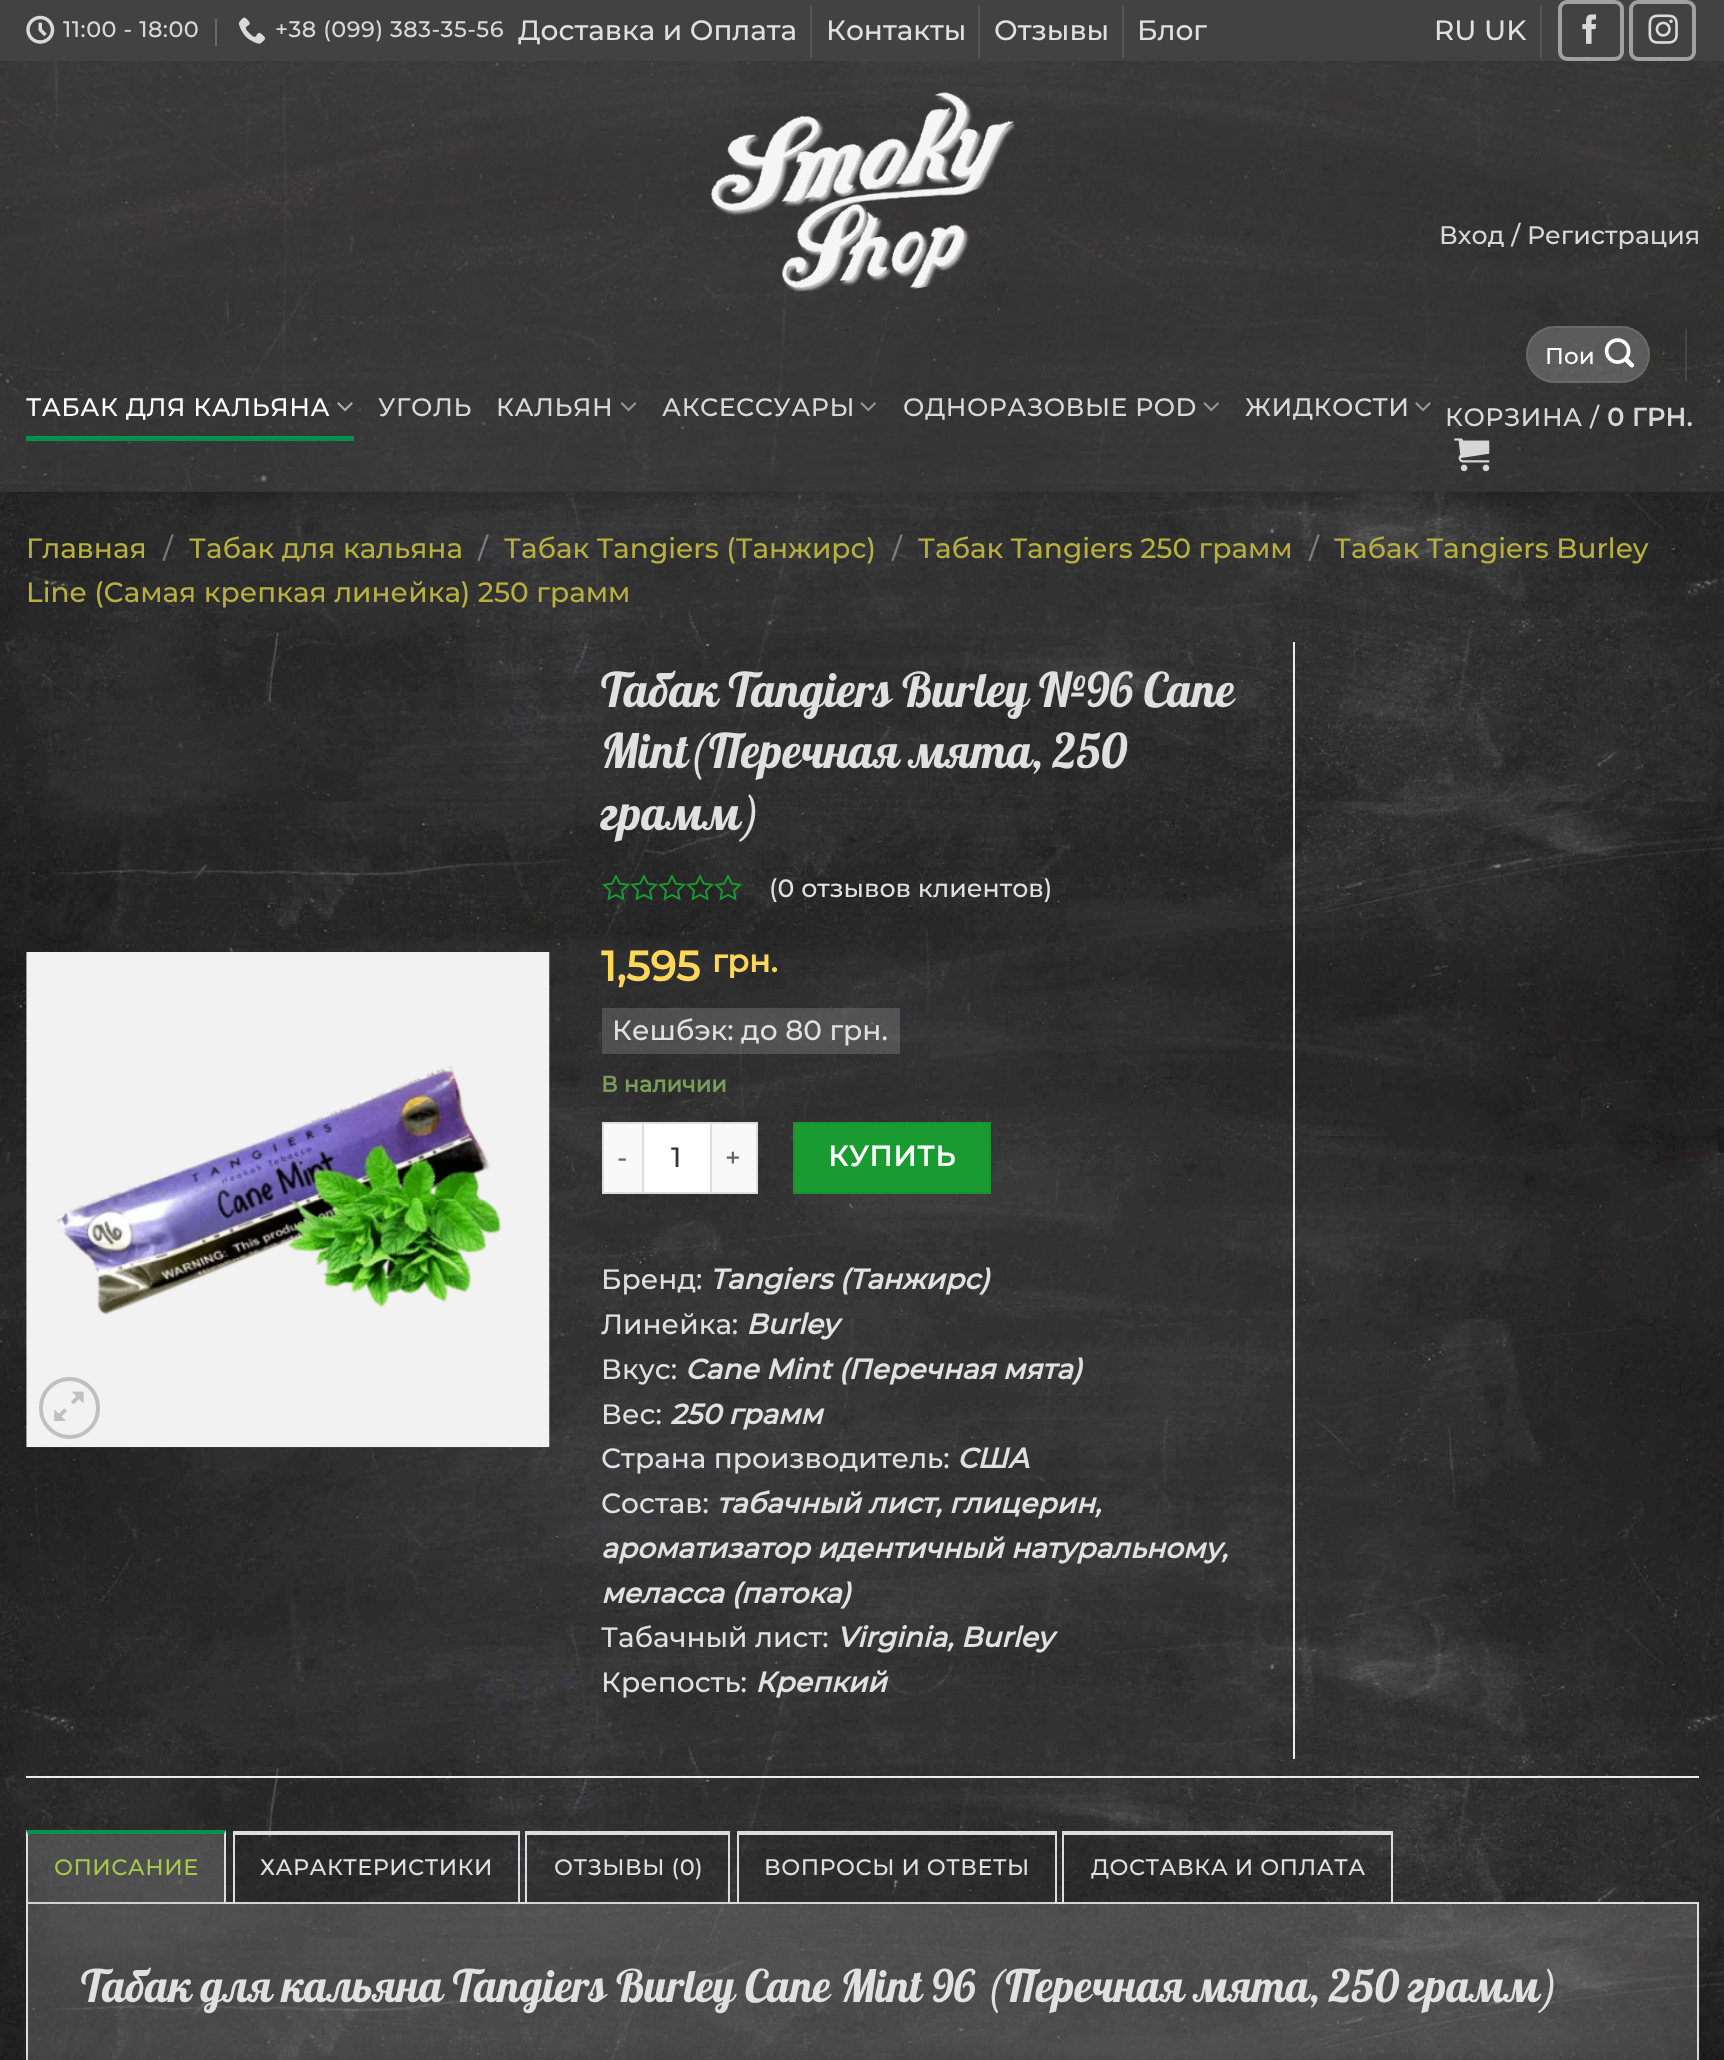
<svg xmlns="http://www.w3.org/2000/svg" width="1724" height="2060">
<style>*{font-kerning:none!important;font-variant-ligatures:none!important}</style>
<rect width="100%" height="100%" fill="#fff"/>
<image x="0" y="491" width="1724" height="1569" href="media/1.png"/>
<rect x="2" y="2" width="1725" height="492" fill="#00000026" filter="blur(9px)"/>
<rect width="1724" height="61" fill="#424242"/>
<image x="26" y="15" width="29" height="29" href="media/2.png"/>
<text x="63" y="37" style="font-family:Montserrat;font-size:22.4px;font-weight:500;letter-spacing:0.5px;fill:#d8d8d8">11:00 - 18:00</text>
<rect x="215" y="19" width="2" height="27" fill="#686868"/>
<image x="238" y="17" width="28" height="27" href="media/3.png"/>
<text x="275" y="37" style="font-family:Montserrat;font-size:22.4px;font-weight:500;letter-spacing:0.5px;fill:#d8d8d8">+38 (099) 383-35-56</text>
<text x="518" y="40" style="font-family:Montserrat;font-size:28px;font-weight:500;fill:#e0e0e0">Доставка и Оплата</text>
<rect x="810" y="5" width="2" height="53" fill="#555"/>
<text x="826" y="40" style="font-family:Montserrat;font-size:28px;font-weight:500;fill:#e0e0e0">Контакты</text>
<rect x="978" y="5" width="2" height="53" fill="#555"/>
<text x="994" y="40" style="font-family:Montserrat;font-size:28px;font-weight:500;fill:#e0e0e0">Отзывы</text>
<rect x="1122" y="5" width="2" height="53" fill="#555"/>
<text x="1137" y="40" style="font-family:Montserrat;font-size:28px;font-weight:500;fill:#e0e0e0">Блог</text>
<text x="1434" y="40" style="font-family:Montserrat;font-size:28px;font-weight:500;fill:#e0e0e0">RU UK</text>
<rect x="1540" y="5" width="2" height="53" fill="#555"/>
<rect x="1560" y="2" width="62" height="57" rx="7" fill="none" stroke="#a1a1a1" stroke-width="4"/>
<image x="1582" y="14" width="15" height="30" href="media/4.png"/>
<rect x="1631" y="2" width="63" height="57" rx="7" fill="none" stroke="#a1a1a1" stroke-width="4"/>
<image x="1648" y="14" width="30" height="30" href="media/5.png"/>
<image x="0" y="61" width="1724" height="431" href="media/6.png"/>
<rect y="61" width="1724" height="431" fill="#2d2d2d82"/>
<image x="710" y="92" width="305" height="200" href="media/7.png"/>
<text x="1439" y="244" style="font-family:Montserrat;font-size:25.25px;font-weight:500;fill:#d8d8d8">Вход / Регистрация</text>
<text x="26" y="416" style="font-family:Montserrat;font-size:25.25px;font-weight:500;letter-spacing:0.5px;fill:#fff">ТАБАК ДЛЯ КАЛЬЯНА</text>
<image x="337" y="402" width="16" height="10" href="media/8.png"/>
<rect x="26" y="436" width="328" height="5" fill="#01914e"/>
<text x="378" y="416" style="font-family:Montserrat;font-size:25.25px;font-weight:500;letter-spacing:0.5px;fill:#d8d8d8">УГОЛЬ</text>
<text x="496" y="416" style="font-family:Montserrat;font-size:25.25px;font-weight:500;letter-spacing:0.5px;fill:#d8d8d8">КАЛЬЯН</text>
<image x="620" y="402" width="17" height="10" href="media/9.png"/>
<text x="662" y="416" style="font-family:Montserrat;font-size:25.25px;font-weight:500;letter-spacing:0.5px;fill:#d8d8d8">АКСЕССУАРЫ</text>
<image x="860" y="402" width="16" height="10" href="media/10.png"/>
<text x="903" y="416" style="font-family:Montserrat;font-size:25.25px;font-weight:500;letter-spacing:0.5px;fill:#d8d8d8">ОДНОРАЗОВЫЕ POD</text>
<image x="1203" y="402" width="16" height="10" href="media/11.png"/>
<text x="1245" y="416" style="font-family:Montserrat;font-size:25.25px;font-weight:500;letter-spacing:0.5px;fill:#d8d8d8">ЖИДКОСТИ</text>
<image x="1415" y="402" width="16" height="10" href="media/12.png"/>
<rect x="1526" y="326" width="124" height="57" rx="28.5" fill="#ffffff33"/>
<rect x="1527" y="327" width="122" height="55" rx="27.5" fill="none" stroke="#ffffff17" stroke-width="2"/>
<text x="1545" y="364" style="font-family:Montserrat;font-size:23px;font-weight:500;fill:#fff">Пои</text>
<image x="1604" y="338" width="31" height="30" href="media/13.png"/>
<rect x="1685" y="329" width="2" height="53" fill="#ffffff1a"/>
<text x="1445" y="426" style="font-family:Montserrat;font-size:25.25px;font-weight:500;letter-spacing:0.5px;fill:#d8d8d8">КОРЗИНА</text>
<text x="1590" y="426" style="font-family:Montserrat;font-size:25.25px;font-weight:500;letter-spacing:0.5px;fill:#d8d8d8">/</text>
<text x="1607" y="426" style="font-family:Montserrat;font-size:25.25px;font-weight:bold;letter-spacing:0.5px;fill:#d8d8d8">0 ГРН.</text>
<image x="1454" y="438" width="36" height="34" href="media/14.png"/>
<text x="26" y="558" style="font-family:Montserrat;font-size:28px;font-weight:500;fill:#b7af40">Главная</text>
<text x="163" y="558" style="font-family:Montserrat;font-size:28px;font-weight:500;fill:#767676">/</text>
<text x="189" y="558" style="font-family:Montserrat;font-size:28px;font-weight:500;fill:#b7af40">Табак для кальяна</text>
<text x="478" y="558" style="font-family:Montserrat;font-size:28px;font-weight:500;fill:#7c7c7d">/</text>
<text x="504" y="558" style="font-family:Montserrat;font-size:28px;font-weight:500;fill:#b7af40">Табак Tangiers (Танжирс)</text>
<text x="892" y="558" style="font-family:Montserrat;font-size:28px;font-weight:500;fill:#7c7c7d">/</text>
<text x="918" y="558" style="font-family:Montserrat;font-size:28px;font-weight:500;fill:#b7af40">Табак Tangiers 250 грамм</text>
<text x="1309" y="558" style="font-family:Montserrat;font-size:28px;font-weight:500;fill:#7c7c7d">/</text>
<text x="1334" y="558" style="font-family:Montserrat;font-size:28px;font-weight:500;fill:#b7af40">Табак Tangiers Burley</text>
<text x="26" y="602" style="font-family:Montserrat;font-size:28px;font-weight:500;fill:#b7af40">Line (Самая крепкая линейка) 250 грамм</text>
<image x="26" y="952" width="524" height="496" href="media/15.png"/>
<rect x="41" y="1379" width="57" height="58" rx="28.5" fill="none" stroke="#c0c0c0" stroke-width="4"/>
<image x="54" y="1391" width="30" height="30" href="media/16.png"/>
<rect x="1293" y="642" width="2" height="1117" fill="#ececec"/>
<text x="601" y="707" style="font-family:'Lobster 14';font-size:47.6px;fill:#e0e0e0">Табак Tangiers Burley №96 Cane</text>
<text x="601" y="768" style="font-family:'Lobster 14';font-size:47.6px;fill:#e0e0e0">Mint(Перечная мята, 250</text>
<text x="601" y="830" style="font-family:'Lobster 14';font-size:47.6px;fill:#e0e0e0">грамм)</text>
<image x="602" y="874" width="140" height="27" href="media/17.png"/>
<text x="769" y="897" style="font-family:Montserrat;font-size:25.25px;font-weight:500;fill:#e0e0e0">(0 отзывов клиентов)</text>
<text x="601" y="981" style="font-family:Montserrat;font-size:42px;font-weight:bold;fill:#ffd85b">1,595</text>
<text x="712" y="972" style="font-family:Montserrat;font-size:31.5px;font-weight:bold;fill:#ffd85b">грн.</text>
<rect x="602" y="1008" width="298" height="46" fill="#b2b2b240"/>
<text x="612" y="1040" style="font-family:Montserrat;font-size:28px;font-weight:500;fill:#e0e0e0">Кешбэк: до 80 грн.</text>
<text x="601" y="1092" style="font-family:Montserrat;font-size:22.4px;font-weight:bold;fill:#7a9c59">В наличии</text>
<rect x="604" y="1124" width="38" height="68" fill="#f9f9f9"/>
<rect x="602" y="1122" width="40" height="2" fill="#ddd"/>
<rect x="602" y="1192" width="40" height="2" fill="#ddd"/>
<rect x="602" y="1122" width="2" height="72" fill="#ddd"/>
<text x="617" y="1167" style="font-family:Montserrat;font-size:27px;font-weight:500;letter-spacing:1px;fill:#666">-</text>
<rect x="643" y="1123" width="68" height="70" fill="#fff" stroke="#ddd" stroke-width="2"/>
<text x="671" y="1167" style="font-family:Montserrat;font-size:28px;font-weight:500;fill:#333">1</text>
<rect x="712" y="1124" width="44" height="68" fill="#f9f9f9"/>
<rect x="712" y="1122" width="46" height="2" fill="#ddd"/>
<rect x="756" y="1122" width="2" height="72" fill="#ddd"/>
<rect x="712" y="1192" width="46" height="2" fill="#ddd"/>
<text x="725" y="1167" style="font-family:Montserrat;font-size:27px;font-weight:500;letter-spacing:1px;fill:#666">+</text>
<rect x="794" y="1123" width="196" height="70" fill="#1a9b32" stroke="#199330" stroke-width="2"/>
<text x="828" y="1166" style="font-family:Montserrat;font-size:28px;font-weight:bold;letter-spacing:1px;fill:#fff">КУПИТЬ</text>
<text x="601" y="1289" style="font-family:Montserrat;font-size:28px;font-weight:500;fill:#e0e0e0">Бренд:</text>
<text x="710" y="1289" style="font-family:Montserrat;font-size:28px;font-weight:bold;font-style:italic;fill:#e0e0e0">Tangiers (Танжирс)</text>
<text x="601" y="1334" style="font-family:Montserrat;font-size:28px;font-weight:500;fill:#e0e0e0">Линейка:</text>
<text x="746" y="1334" style="font-family:Montserrat;font-size:28px;font-weight:bold;font-style:italic;fill:#e0e0e0">Burley</text>
<text x="601" y="1379" style="font-family:Montserrat;font-size:28px;font-weight:500;fill:#e0e0e0">Вкус:</text>
<text x="685" y="1379" style="font-family:Montserrat;font-size:28px;font-weight:bold;font-style:italic;fill:#e0e0e0">Cane Mint (Перечная мята)</text>
<text x="601" y="1424" style="font-family:Montserrat;font-size:28px;font-weight:500;fill:#e0e0e0">Вес:</text>
<text x="670" y="1424" style="font-family:Montserrat;font-size:28px;font-weight:bold;font-style:italic;fill:#e0e0e0">250 грамм</text>
<text x="601" y="1468" style="font-family:Montserrat;font-size:28px;font-weight:500;fill:#e0e0e0">Страна производитель:</text>
<text x="957" y="1468" style="font-family:Montserrat;font-size:28px;font-weight:bold;font-style:italic;fill:#e0e0e0">США</text>
<text x="601" y="1513" style="font-family:Montserrat;font-size:28px;font-weight:500;fill:#e0e0e0">Состав:</text>
<text x="717" y="1513" style="font-family:Montserrat;font-size:28px;font-weight:bold;font-style:italic;fill:#e0e0e0">табачный лист, глицерин,</text>
<text x="601" y="1558" style="font-family:Montserrat;font-size:28px;font-weight:bold;font-style:italic;fill:#e0e0e0">ароматизатор идентичный натуральному,</text>
<text x="601" y="1603" style="font-family:Montserrat;font-size:28px;font-weight:bold;font-style:italic;fill:#e0e0e0">меласса (патока)</text>
<text x="601" y="1647" style="font-family:Montserrat;font-size:28px;font-weight:500;fill:#e0e0e0">Табачный лист:</text>
<text x="837" y="1647" style="font-family:Montserrat;font-size:28px;font-weight:bold;font-style:italic;fill:#e0e0e0">Virginia, Burley</text>
<text x="601" y="1692" style="font-family:Montserrat;font-size:28px;font-weight:500;fill:#e0e0e0">Крепость:</text>
<text x="755" y="1692" style="font-family:Montserrat;font-size:28px;font-weight:bold;font-style:italic;fill:#e0e0e0">Крепкий</text>
<rect x="26" y="1776" width="1673" height="2" fill="#ececec"/>
<rect x="27" y="1903" width="1671" height="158" fill="#b2b2b240" stroke="#ddd" stroke-width="2"/>
<rect x="26" y="1831" width="200" height="73" fill="#b2b2b240"/>
<path d="M26 1830h200l-2 4h-196z" fill="#01914e"/>
<path d="M226 1830v74h-2v-70z" fill="#ddd"/>
<path d="M26 1904v-74l2 4v70z" fill="#ddd"/>
<text x="54" y="1875" style="font-family:Montserrat;font-size:22.4px;font-weight:500;letter-spacing:0.5px;fill:#a4c94e">ОПИСАНИЕ</text>
<rect x="235" y="1835" width="283" height="69" fill="#0000000a"/>
<rect x="233" y="1831" width="287" height="4" fill="#ddd"/>
<rect x="518" y="1831" width="2" height="73" fill="#ddd"/>
<rect x="233" y="1831" width="2" height="73" fill="#ddd"/>
<text x="260" y="1875" style="font-family:Montserrat;font-size:22.4px;font-weight:500;letter-spacing:0.5px;fill:#e0e0e0">ХАРАКТЕРИСТИКИ</text>
<rect x="527" y="1836" width="201" height="68" fill="#0000000a"/>
<rect x="525" y="1831" width="205" height="4" fill="#ddd"/>
<rect x="728" y="1831" width="2" height="73" fill="#ddd"/>
<rect x="525" y="1831" width="2" height="73" fill="#ddd"/>
<text x="554" y="1875" style="font-family:Montserrat;font-size:22.4px;font-weight:500;letter-spacing:0.5px;fill:#e0e0e0">ОТЗЫВЫ (0)</text>
<rect x="739" y="1835" width="316" height="69" fill="#0000000a"/>
<rect x="737" y="1831" width="320" height="4" fill="#ddd"/>
<rect x="1055" y="1831" width="2" height="73" fill="#ddd"/>
<rect x="737" y="1831" width="2" height="73" fill="#ddd"/>
<text x="764" y="1875" style="font-family:Montserrat;font-size:22.4px;font-weight:500;letter-spacing:0.5px;fill:#e0e0e0">ВОПРОСЫ И ОТВЕТЫ</text>
<rect x="1064" y="1835" width="327" height="69" fill="#0000000a"/>
<rect x="1062" y="1831" width="331" height="4" fill="#ddd"/>
<rect x="1391" y="1831" width="2" height="73" fill="#ddd"/>
<rect x="1062" y="1831" width="2" height="73" fill="#ddd"/>
<text x="1091" y="1875" style="font-family:Montserrat;font-size:22.4px;font-weight:500;letter-spacing:0.5px;fill:#e0e0e0">ДОСТАВКА И ОПЛАТА</text>
<text x="81" y="2002" style="font-family:'Lobster 14';font-size:44.8px;fill:#e0e0e0">Табак для кальяна Tangiers Burley Cane Mint 96 (Перечная мята,</text>
<text x="1329" y="2002" style="font-family:'Lobster 14';font-size:44.8px;fill:#e0e0e0">250 грамм)</text>
<rect y="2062" width="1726" height="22" fill="#00000024" filter="blur(8px)"/>
</svg>
